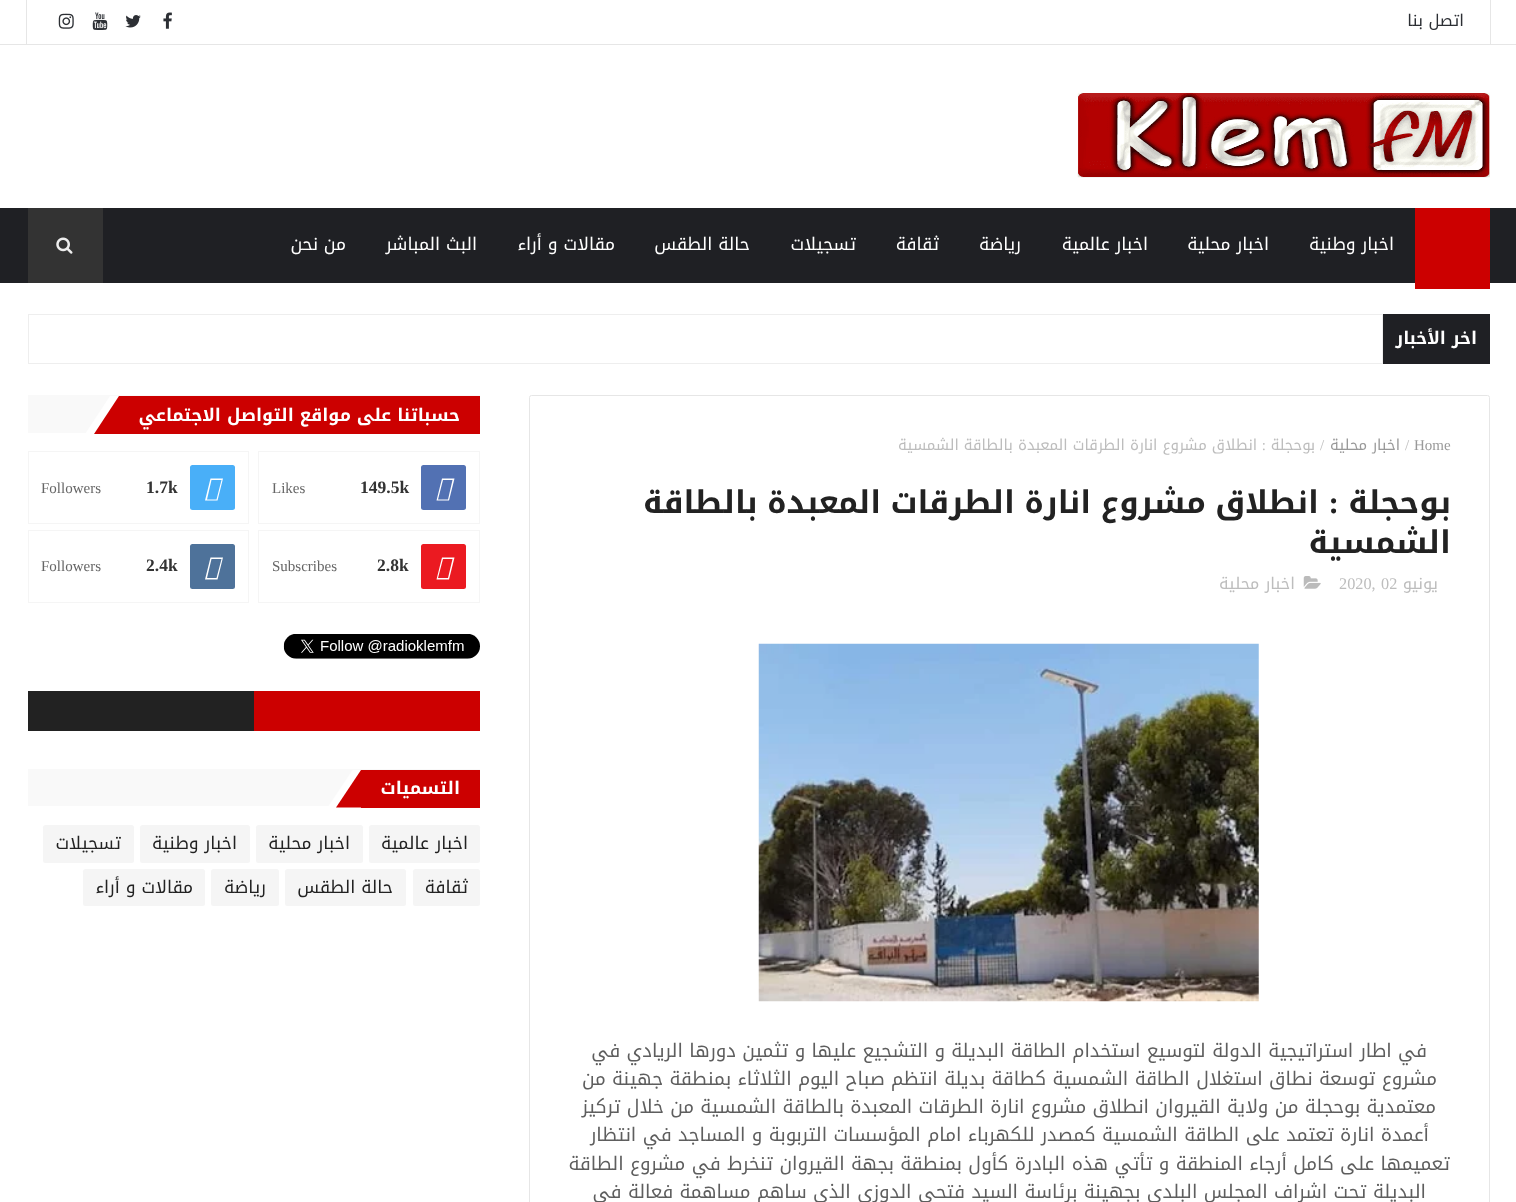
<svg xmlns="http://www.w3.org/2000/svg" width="1516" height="1202">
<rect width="100%" height="100%" fill="#fff"/>
<rect y="44" width="1516" height="1" fill="#e6e6e6"/>
<rect x="1490" width="1" height="44" fill="#e6e6e6"/>
<rect x="26" width="1" height="44" fill="#e6e6e6"/>
<text x="1464" y="26" style="font-family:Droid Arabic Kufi;font-size:16.25px;direction:rtl;fill:#2c2f34">اتصل بنا</text>
<image x="163" y="12" width="9" height="17" href="media/1.png"/>
<image x="125" y="15" width="16" height="13" href="media/2.png"/>
<image x="92" y="12" width="16" height="18" href="media/3.png"/>
<image x="58" y="13" width="16" height="16" href="media/4.png"/>
<image x="1077" y="92" width="413" height="86" href="media/5.png"/>
<rect y="208" width="1516" height="75" fill="#1f2024"/>
<rect x="1415" y="208" width="75" height="81" fill="#c00"/>
<text x="1394" y="250" style="font-family:Droid Arabic Kufi;font-size:17.5px;direction:rtl;fill:#fff">اخبار وطنية</text>
<text x="1269" y="250" style="font-family:Droid Arabic Kufi;font-size:17.5px;direction:rtl;fill:#fff">اخبار محلية</text>
<text x="1148" y="250" style="font-family:Droid Arabic Kufi;font-size:17.5px;direction:rtl;fill:#fff">اخبار عالمية</text>
<text x="1021" y="250" style="font-family:Droid Arabic Kufi;font-size:17.5px;direction:rtl;fill:#fff">رياضة</text>
<text x="939" y="250" style="font-family:Droid Arabic Kufi;font-size:17.5px;direction:rtl;fill:#fff">ثقافة</text>
<text x="856" y="250" style="font-family:Droid Arabic Kufi;font-size:17.5px;direction:rtl;fill:#fff">تسجيلات</text>
<text x="750" y="250" style="font-family:Droid Arabic Kufi;font-size:17.5px;direction:rtl;fill:#fff">حالة الطقس</text>
<text x="615" y="250" style="font-family:Droid Arabic Kufi;font-size:17.5px;direction:rtl;fill:#fff">مقالات و أراء</text>
<text x="477" y="250" style="font-family:Droid Arabic Kufi;font-size:17.5px;direction:rtl;fill:#fff">البث المباشر</text>
<text x="346" y="250" style="font-family:Droid Arabic Kufi;font-size:17.5px;direction:rtl;fill:#fff">من نحن</text>
<rect x="28" y="208" width="75" height="75" fill="#333"/>
<image x="56" y="237" width="17" height="17" href="media/6.png"/>
<rect x="1383" y="314" width="107" height="50" fill="#1f2024"/>
<text x="1477" y="344" style="font-family:Droid Arabic Kufi;font-size:17.5px;font-weight:bold;direction:rtl;fill:#fff">اخر الأخبار</text>
<rect x="28.5" y="314.5" width="1354" height="49" fill="none" stroke="#eee"/>
<rect x="529.5" y="395.5" width="960" height="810" rx="2" fill="none" stroke="#e6e6e6"/>
<text x="1414" y="450" style="font-family:Liberation Serif;font-size:15px;fill:#999">Home</text>
<text x="1405" y="450" style="font-family:Liberation Serif;font-size:15px;fill:#bdbdbd">/</text>
<text x="1400" y="450" style="font-family:Droid Arabic Kufi;font-size:15px;direction:rtl;fill:#999">اخبار محلية</text>
<text x="1320" y="450" style="font-family:Liberation Serif;font-size:15px;fill:#bdbdbd">/</text>
<text x="1315" y="450" style="font-family:Droid Arabic Kufi;font-size:15px;direction:rtl;fill:#bdbdbd">بوحجلة</text>
<text x="1266" y="450" style="font-family:Liberation Serif;font-size:15px;direction:rtl;fill:#bdbdbd">:</text>
<text x="1257" y="450" style="font-family:Droid Arabic Kufi;font-size:15px;direction:rtl;fill:#bdbdbd">انطلاق مشروع انارة الطرقات المعبدة بالطاقة الشمسية</text>
<text x="1451" y="513" style="font-family:Droid Arabic Kufi;font-size:31.25px;font-weight:bold;direction:rtl;fill:#222">بوحجلة</text>
<text x="1339" y="513" style="font-family:Liberation Serif;font-size:31.25px;font-weight:bold;direction:rtl;fill:#222">:</text>
<text x="1319" y="513" word-spacing="-1.25" style="font-family:Droid Arabic Kufi;font-size:31.25px;font-weight:bold;direction:rtl;fill:#222">انطلاق مشروع انارة الطرقات المعبدة بالطاقة</text>
<text x="1451" y="553" style="font-family:Droid Arabic Kufi;font-size:31.25px;font-weight:bold;direction:rtl;fill:#222">الشمسية</text>
<text x="1438" y="589" style="font-family:Droid Arabic Kufi;font-size:16.25px;direction:rtl;fill:#bdbdbd">يونيو</text>
<text x="1381" y="589" style="font-family:Liberation Serif;font-size:16.25px;fill:#bdbdbd">02</text>
<text x="1339" y="589" style="font-family:Liberation Serif;font-size:16.25px;fill:#bdbdbd">2020,</text>
<image x="1303" y="576" width="18" height="13" href="media/7.png"/>
<text x="1295" y="589" style="font-family:Droid Arabic Kufi;font-size:16.25px;direction:rtl;fill:#bdbdbd">اخبار محلية</text>
<image x="758" y="643" width="501" height="359" href="media/8.png"/>
<text x="1427" y="1057" style="font-family:Droid Arabic Kufi;font-size:18.75px;direction:rtl;fill:#5e5e5e">في اطار استراتيجية الدولة لتوسيع استخدام الطاقة البديلة و التشجيع عليها و تثمين دورها الريادي في</text>
<text x="1437" y="1085" style="font-family:Droid Arabic Kufi;font-size:18.75px;direction:rtl;fill:#5e5e5e">مشروع توسعة نطاق استغلال الطاقة الشمسية كطاقة بديلة انتظم صباح اليوم الثلاثاء بمنطقة جهينة من</text>
<text x="1436" y="1113" style="font-family:Droid Arabic Kufi;font-size:18.75px;direction:rtl;fill:#5e5e5e">معتمدية بوحجلة من ولاية القيروان انطلاق مشروع انارة الطرقات المعبدة بالطاقة الشمسية من خلال تركيز</text>
<text x="1429" y="1141" style="font-family:Droid Arabic Kufi;font-size:18.75px;direction:rtl;fill:#5e5e5e">أعمدة انارة تعتمد على الطاقة الشمسية كمصدر للكهرباء امام المؤسسات التربوبة و المساجد في انتظار</text>
<text x="1450" y="1170" style="font-family:Droid Arabic Kufi;font-size:18.75px;direction:rtl;fill:#5e5e5e">تعميمها على كامل أرجاء المنطقة و تأتي هذه البادرة كأول بمنطقة بجهة القيروان تنخرط في مشروع الطاقة</text>
<text x="1426" y="1198" style="font-family:Droid Arabic Kufi;font-size:18.75px;direction:rtl;fill:#5e5e5e">البديلة تحت اشراف المجلس البلدي بجهينة برئاسة السيد فتحي الدوزي الذي ساهم مساهمة فعالة في</text>
<rect x="28" y="395" width="452" height="38" fill="#f9f9f9"/>
<rect x="119" y="396" width="361" height="38" fill="#c00"/>
<path d="M119 434h-34l25-38h9z" fill="#fff"/>
<text x="460" y="421" style="font-family:Droid Arabic Kufi;font-size:17.5px;font-weight:bold;direction:rtl;fill:#fff">حسباتنا على مواقع التواصل الاجتماعي</text>
<path d="M119 434h-25l25-38z" fill="#c00"/>
<rect x="258.5" y="451.5" width="221" height="72" fill="none" stroke="#f5f5f5"/>
<rect x="421" y="465" width="45" height="45" rx="2.5" fill="#5271b3"/>
<path d="M436.5 500.5l5.5-22h12.5l-5.5 22zm1.5-1h10l4.5-19.5h-9.5z" fill="#fff"/>
<text x="360" y="493" style="font-family:Liberation Serif;font-size:17.5px;font-weight:bold;fill:#333">149.5k</text>
<text x="272" y="493" style="font-family:Liberation Serif;font-size:15px;fill:#666">Likes</text>
<rect x="28.5" y="451.5" width="220" height="72" fill="none" stroke="#f5f5f5"/>
<rect x="190" y="465" width="45" height="45" rx="2.5" fill="#49aff8"/>
<path d="M205 500.5l5.5-22h12.5l-5.5 22zm2-1h9.5l5-19.5h-10z" fill="#fff"/>
<text x="146" y="493" style="font-family:Liberation Serif;font-size:17.5px;font-weight:bold;fill:#333">1.7k</text>
<text x="41" y="493" style="font-family:Liberation Serif;font-size:15px;fill:#666">Followers</text>
<rect x="258.5" y="530.5" width="221" height="72" fill="none" stroke="#f5f5f5"/>
<rect x="421" y="544" width="45" height="45" rx="2.5" fill="#eb1a21"/>
<path d="M436.5 579.5l5.5-22h12.5l-5.5 22zm1.5-1.5h10l4.5-19h-9.5z" fill="#fff"/>
<text x="377" y="571" style="font-family:Liberation Serif;font-size:17.5px;font-weight:bold;fill:#333">2.8k</text>
<text x="272" y="571" style="font-family:Liberation Serif;font-size:15px;fill:#666">Subscribes</text>
<rect x="28.5" y="530.5" width="220" height="72" fill="none" stroke="#f5f5f5"/>
<rect x="190" y="544" width="45" height="45" rx="2.5" fill="#4e729a"/>
<path d="M205 579.5l5.5-22h12.5l-5.5 22zm2-1.5h9.5l5-19h-10z" fill="#fff"/>
<text x="146" y="571" style="font-family:Liberation Serif;font-size:17.5px;font-weight:bold;fill:#333">2.4k</text>
<text x="41" y="571" style="font-family:Liberation Serif;font-size:15px;fill:#666">Followers</text>
<image x="283" y="634" width="197" height="25" href="media/9.png"/>
<rect x="254" y="691" width="226" height="40" fill="#c00"/>
<rect x="28" y="691" width="226" height="40" fill="#222"/>
<rect x="28" y="769" width="452" height="37" fill="#f9f9f9"/>
<rect x="361" y="770" width="119" height="38" fill="#c00"/>
<path d="M361 807.5h-33.5l25-37.5h8.5z" fill="#fff"/>
<text x="460" y="794" style="font-family:Droid Arabic Kufi;font-size:17.5px;font-weight:bold;direction:rtl;fill:#fff">التسميات</text>
<path d="M361 807.5h-25l25-37.5z" fill="#c00"/>
<rect x="369" y="825" width="111" height="38" rx="2.5" fill="#f5f5f5"/>
<text x="468" y="849" style="font-family:Droid Arabic Kufi;font-size:17.5px;direction:rtl;fill:#222">اخبار</text>
<text x="429" y="849" style="font-family:Droid Arabic Kufi;font-size:17.5px;direction:rtl;fill:#222">عالمية</text>
<rect x="256" y="825" width="107" height="38" rx="2.5" fill="#f5f5f5"/>
<text x="350" y="849" style="font-family:Droid Arabic Kufi;font-size:17.5px;direction:rtl;fill:#222">اخبار محلية</text>
<rect x="140" y="825" width="110" height="38" rx="2.5" fill="#f5f5f5"/>
<text x="237" y="849" style="font-family:Droid Arabic Kufi;font-size:17.5px;direction:rtl;fill:#222">اخبار وطنية</text>
<rect x="43" y="825" width="91" height="38" rx="2.5" fill="#f5f5f5"/>
<text x="121" y="849" style="font-family:Droid Arabic Kufi;font-size:17.5px;direction:rtl;fill:#222">تسجيلات</text>
<rect x="413" y="869" width="67" height="37" rx="2.5" fill="#f5f5f5"/>
<text x="468" y="893" style="font-family:Droid Arabic Kufi;font-size:17.5px;direction:rtl;fill:#222">ثقافة</text>
<rect x="285" y="869" width="121" height="37" rx="2.5" fill="#f5f5f5"/>
<text x="393" y="893" style="font-family:Droid Arabic Kufi;font-size:17.5px;direction:rtl;fill:#222">حالة الطقس</text>
<rect x="211" y="869" width="68" height="37" rx="2.5" fill="#f5f5f5"/>
<text x="266" y="893" style="font-family:Droid Arabic Kufi;font-size:17.5px;direction:rtl;fill:#222">رياضة</text>
<rect x="83" y="869" width="122" height="37" rx="2.5" fill="#f5f5f5"/>
<text x="193" y="893" style="font-family:Droid Arabic Kufi;font-size:17.5px;direction:rtl;fill:#222">مقالات و أراء</text>
</svg>
